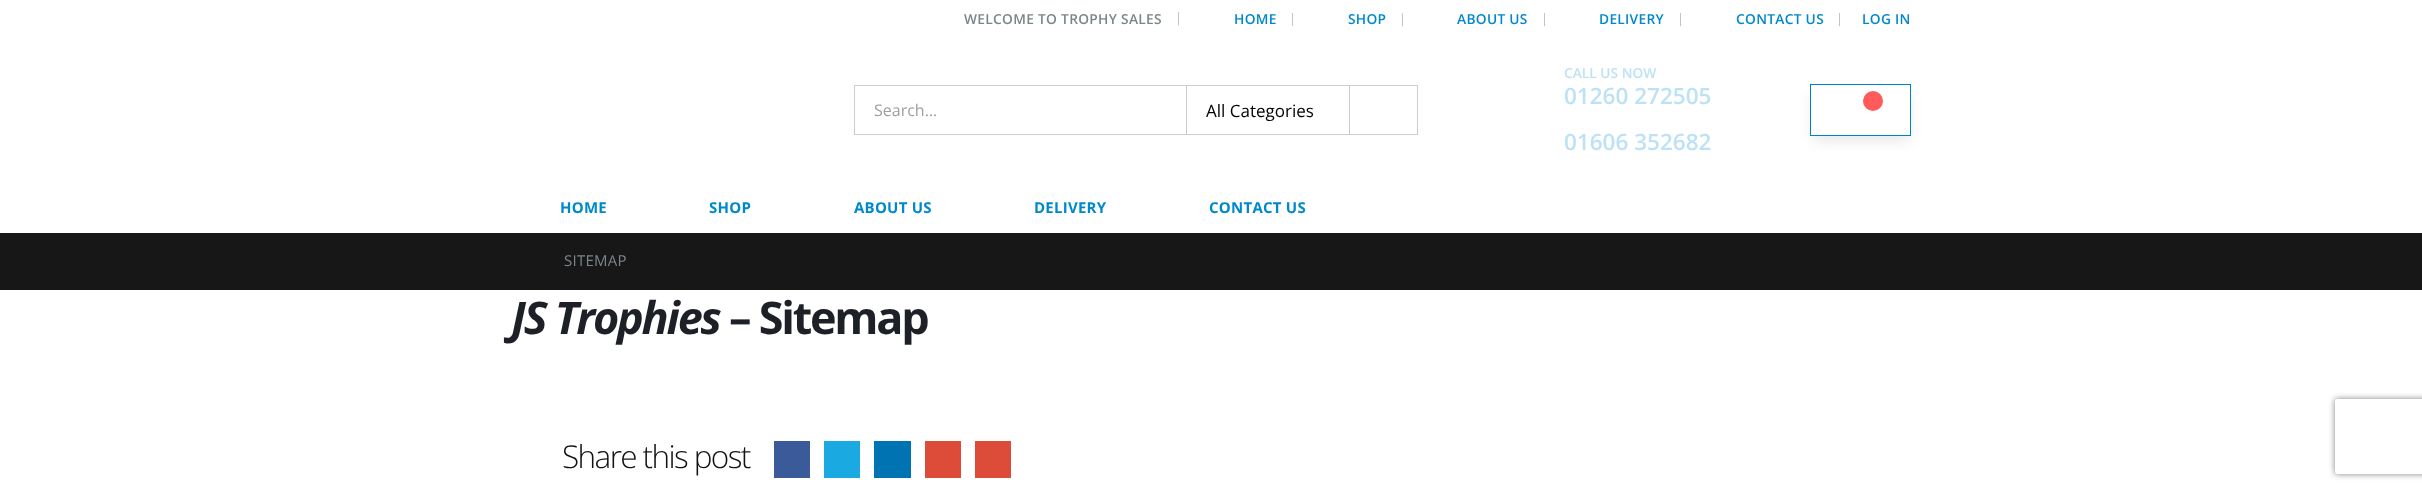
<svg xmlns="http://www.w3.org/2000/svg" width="2422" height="491">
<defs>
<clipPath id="clip1"><path d="M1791 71h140v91h-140zm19 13h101v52h-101z" clip-rule="evenodd"/></clipPath>
<clipPath id="clip2"><path d="M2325 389h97v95h-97zm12.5 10h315c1.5 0 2.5 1 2.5 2.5v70c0 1.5-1 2.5-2.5 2.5h-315c-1.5 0-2.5-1-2.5-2.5v-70c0-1.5 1-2.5 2.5-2.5z" clip-rule="evenodd"/></clipPath>
</defs>
<rect width="100%" height="100%" fill="#fff"/>
<text x="964" y="24" style="font-family:Open Sans;font-size:13.75px;font-weight:600;letter-spacing:0.3px;fill:#7b858a">WELCOME TO TROPHY SALES</text>
<text x="1175" y="22" style="font-family:Open Sans;font-size:13px;font-weight:300;letter-spacing:0.25px;fill:#959da1">|</text>
<text x="1234" y="24" style="font-family:Open Sans;font-size:13.75px;font-weight:600;letter-spacing:0.3px;fill:#08c">HOME</text>
<text x="1289" y="23" style="font-family:Open Sans;font-size:13px;font-weight:300;letter-spacing:0.25px;fill:#959da1">|</text>
<text x="1348" y="24" style="font-family:Open Sans;font-size:13.75px;font-weight:600;letter-spacing:0.3px;fill:#08c">SHOP</text>
<text x="1399" y="23" style="font-family:Open Sans;font-size:13px;font-weight:300;letter-spacing:0.25px;fill:#959da1">|</text>
<text x="1457" y="24" style="font-family:Open Sans;font-size:13.75px;font-weight:600;letter-spacing:0.3px;fill:#08c">ABOUT US</text>
<text x="1541" y="23" style="font-family:Open Sans;font-size:13px;font-weight:300;letter-spacing:0.25px;fill:#959da1">|</text>
<text x="1599" y="24" style="font-family:Open Sans;font-size:13.75px;font-weight:600;letter-spacing:0.3px;fill:#08c">DELIVERY</text>
<text x="1677" y="23" style="font-family:Open Sans;font-size:13px;font-weight:300;letter-spacing:0.25px;fill:#959da1">|</text>
<text x="1736" y="24" style="font-family:Open Sans;font-size:13.75px;font-weight:600;letter-spacing:0.3px;fill:#08c">CONTACT US</text>
<text x="1836" y="23" style="font-family:Open Sans;font-size:13px;font-weight:300;letter-spacing:0.25px;fill:#959da1">|</text>
<text x="1862" y="24" style="font-family:Open Sans;font-size:13.75px;font-weight:600;letter-spacing:0.3px;fill:#08c">LOG IN</text>
<rect x="854.5" y="85.5" width="563" height="49" fill="none" stroke="#ccc"/>
<rect x="1186" y="86" width="1" height="48" fill="#ccc"/>
<text x="874" y="116" style="font-family:Open Sans;font-size:16px;fill:#9e9e9e">Search…</text>
<rect x="1349" y="86" width="1" height="48" fill="#ccc"/>
<text x="1206" y="117" style="font-family:Open Sans;font-size:17px;fill:#000">All Categories</text>
<text x="1564" y="78" style="font-family:Open Sans;font-size:13.75px;font-weight:600;fill:#bde1f5">CALL US NOW</text>
<text x="1564" y="104" style="font-family:Open Sans;font-size:22.5px;font-weight:600;fill:#bde1f5">01260 272505</text>
<text x="1564" y="150" style="font-family:Open Sans;font-size:22.5px;font-weight:600;fill:#bde1f5">01606 352682</text>
<g clip-path="url(#clip1)">
<rect x="1813" y="93" width="96" height="47" fill="#0000001a" filter="blur(7px)"/>
</g>
<rect x="1810.5" y="84.5" width="100" height="51" fill="none" stroke="#0082c2"/>
<circle cx="1873" cy="101" r="10" fill="#ff5b5b"/>
<text x="560" y="213" style="font-family:Open Sans;font-size:15px;font-weight:bold;letter-spacing:0.25px;fill:#08c">HOME</text>
<text x="709" y="213" style="font-family:Open Sans;font-size:15px;font-weight:bold;letter-spacing:0.25px;fill:#08c">SHOP</text>
<text x="854" y="213" style="font-family:Open Sans;font-size:15px;font-weight:bold;letter-spacing:0.25px;fill:#08c">ABOUT US</text>
<text x="1034" y="213" style="font-family:Open Sans;font-size:15px;font-weight:bold;letter-spacing:0.25px;fill:#08c">DELIVERY</text>
<text x="1209" y="213" style="font-family:Open Sans;font-size:15px;font-weight:bold;letter-spacing:0.25px;fill:#08c">CONTACT US</text>
<rect y="233" width="2422" height="57" fill="#171717"/>
<text x="564" y="266" style="font-family:Open Sans;font-size:15px;letter-spacing:0.25px;fill:#7b858a">SITEMAP</text>
<text x="511" y="334" style="font-family:Open Sans;font-size:45px;font-weight:bold;font-style:italic;letter-spacing:-2.25px;fill:#1d2127">JS Trophies</text>
<text x="729" y="334" style="font-family:Open Sans;font-size:45px;font-weight:bold;letter-spacing:-2.25px;fill:#1d2127">– Sitemap</text>
<text x="562" y="468" style="font-family:Open Sans;font-size:31.5px;font-weight:300;letter-spacing:-1.6px;fill:#121214">Share this post</text>
<rect x="774" y="441" width="36" height="37" fill="#3b5a9a"/>
<rect x="824" y="441" width="36" height="37" fill="#1aa9e1"/>
<rect x="874" y="441" width="37" height="37" fill="#0073b2"/>
<rect x="925" y="441" width="36" height="37" fill="#dd4b39"/>
<rect x="975" y="441" width="36" height="37" fill="#dd4b39"/>
<g clip-path="url(#clip2)">
<rect x="2335" y="399" width="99" height="75" rx="2.5" fill="#808080" filter="blur(3px)"/>
</g>
</svg>
